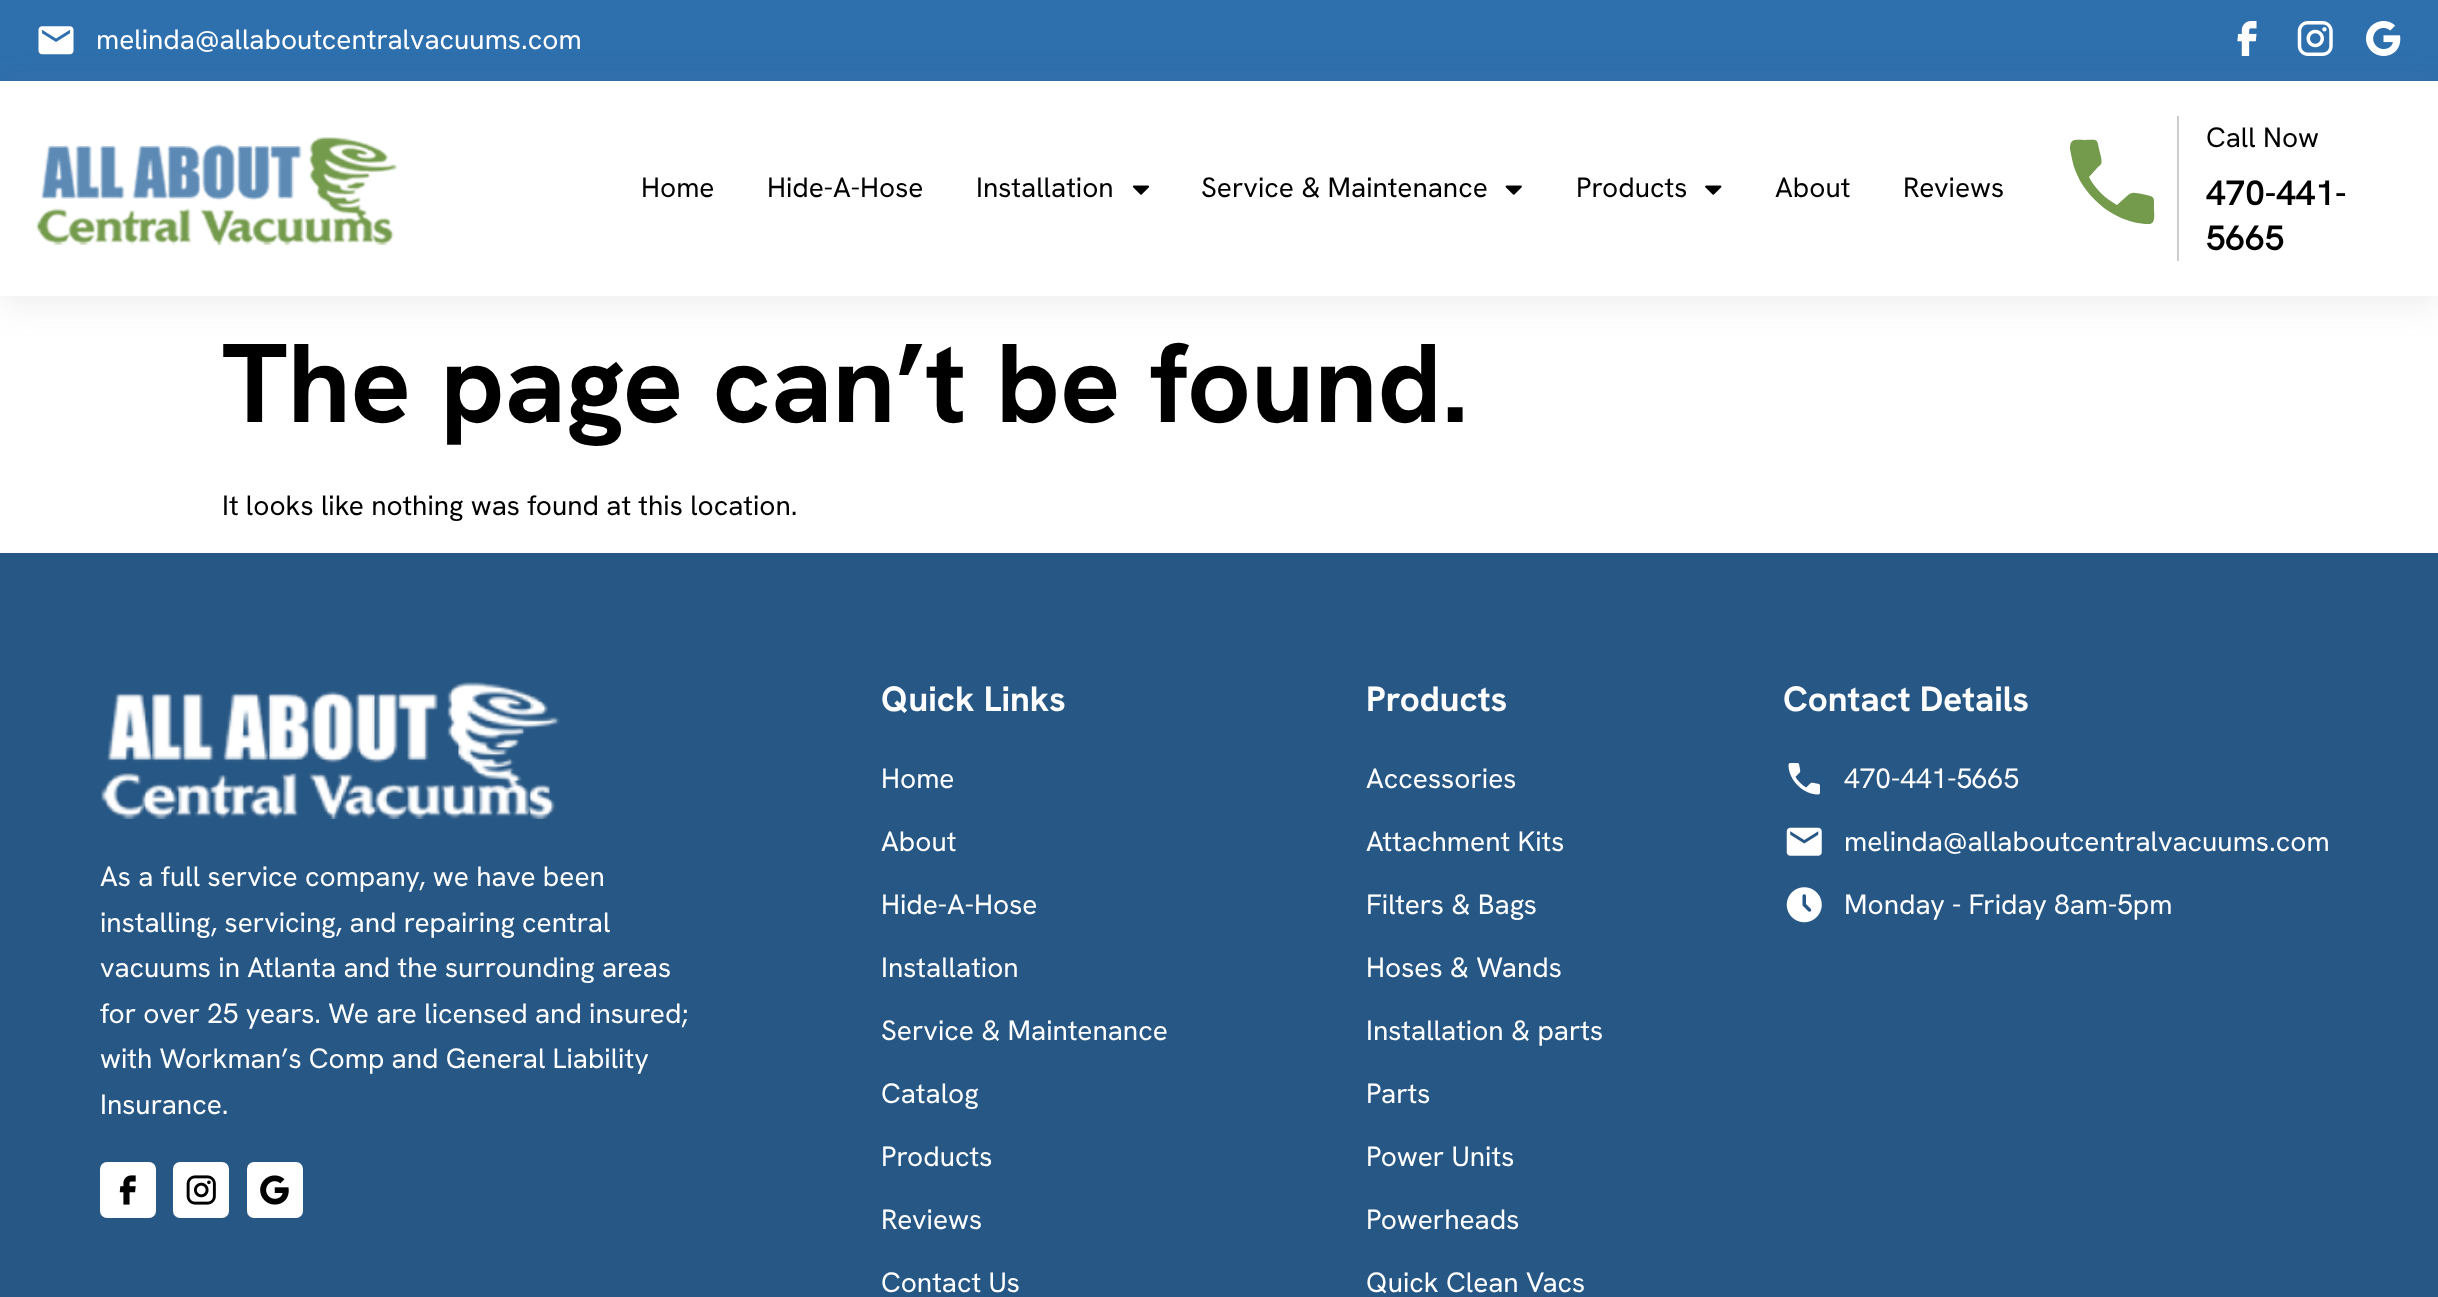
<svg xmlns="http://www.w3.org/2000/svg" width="2438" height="1297">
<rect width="100%" height="100%" fill="#fff"/>
<rect width="2438" height="81" fill="#2e6fad"/>
<image x="38" y="26" width="36" height="29" href="media/1.png"/>
<text x="96" y="49" style="font-family:Hanken Grotesk;font-size:28px;fill:#fff">melinda@allaboutcentralvacuums.com</text>
<image x="2237" y="21" width="20" height="35" href="media/2.png"/>
<image x="2297" y="21" width="36" height="35" href="media/3.png"/>
<image x="2366" y="21" width="35" height="35" href="media/4.png"/>
<rect y="88" width="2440" height="215" fill="#76767624" filter="blur(17.5px)"/>
<rect y="81" width="2438" height="215" fill="#fff"/>
<image x="36" y="137" width="362" height="108" href="media/5.png"/>
<text x="641" y="197" style="font-family:Hanken Grotesk;font-size:28px;fill:#000">Home</text>
<text x="767" y="197" style="font-family:Hanken Grotesk;font-size:28px;fill:#000">Hide-A-Hose</text>
<text x="976" y="197" style="font-family:Hanken Grotesk;font-size:28px;fill:#000">Installation</text>
<image x="1132" y="185" width="18" height="10" href="media/6.png"/>
<text x="1201" y="197" style="font-family:Hanken Grotesk;font-size:28px;fill:#000">Service &amp; Maintenance</text>
<image x="1505" y="185" width="17" height="10" href="media/7.png"/>
<text x="1576" y="197" style="font-family:Hanken Grotesk;font-size:28px;fill:#000">Products</text>
<image x="1705" y="185" width="17" height="10" href="media/8.png"/>
<text x="1775" y="197" style="font-family:Hanken Grotesk;font-size:28px;fill:#000">About</text>
<text x="1903" y="197" style="font-family:Hanken Grotesk;font-size:28px;fill:#000">Reviews</text>
<path d="M2149 224c-20 0-40-10-54-24c-11-11-20-25-23-41l-2-10c0-11 5-9 15-9c12 0 12-2 14 9l2 8c1 6 1 7-3 10l-9 10c6 12 17 22 28 28l10-9c5-5 8-3 15-2c14 3 12 2 12 16c0 4 2 14-5 14z" fill="#749a4b"/>
<rect x="2177" y="116" width="2" height="145" fill="#cdcdcd"/>
<text x="2206" y="147" style="font-family:Hanken Grotesk;font-size:28px;fill:#000">Call Now</text>
<text x="2206" y="205" style="font-family:Hanken Grotesk;font-size:35px;font-weight:600;fill:#000">470-441-</text>
<text x="2206" y="250" style="font-family:Hanken Grotesk;font-size:35px;font-weight:600;fill:#000">5665</text>
<text x="222" y="422" style="font-family:Hanken Grotesk;font-size:112px;font-weight:bold;fill:#000">The page can’t be found.</text>
<text x="222" y="515" style="font-family:Hanken Grotesk;font-size:28px;fill:#000">It looks like nothing was found at this location.</text>
<rect y="553" width="2438" height="744" fill="#275784"/>
<text x="881" y="711" style="font-family:Hanken Grotesk;font-size:35px;font-weight:bold;fill:#fff">Quick Links</text>
<text x="881" y="788" style="font-family:Hanken Grotesk;font-size:28px;fill:#fff">Home</text>
<text x="881" y="851" style="font-family:Hanken Grotesk;font-size:28px;fill:#fff">About</text>
<text x="881" y="914" style="font-family:Hanken Grotesk;font-size:28px;fill:#fff">Hide-A-Hose</text>
<text x="881" y="977" style="font-family:Hanken Grotesk;font-size:28px;fill:#fff">Installation</text>
<text x="881" y="1040" style="font-family:Hanken Grotesk;font-size:28px;fill:#fff">Service &amp; Maintenance</text>
<text x="881" y="1103" style="font-family:Hanken Grotesk;font-size:28px;fill:#fff">Catalog</text>
<text x="881" y="1166" style="font-family:Hanken Grotesk;font-size:28px;fill:#fff">Products</text>
<text x="881" y="1229" style="font-family:Hanken Grotesk;font-size:28px;fill:#fff">Reviews</text>
<text x="881" y="1292" style="font-family:Hanken Grotesk;font-size:28px;fill:#fff">Contact Us</text>
<text x="1366" y="711" style="font-family:Hanken Grotesk;font-size:35px;font-weight:bold;fill:#fff">Products</text>
<text x="1366" y="788" style="font-family:Hanken Grotesk;font-size:28px;fill:#fff">Accessories</text>
<text x="1366" y="851" style="font-family:Hanken Grotesk;font-size:28px;fill:#fff">Attachment Kits</text>
<text x="1366" y="914" style="font-family:Hanken Grotesk;font-size:28px;fill:#fff">Filters &amp; Bags</text>
<text x="1366" y="977" style="font-family:Hanken Grotesk;font-size:28px;fill:#fff">Hoses &amp; Wands</text>
<text x="1366" y="1040" style="font-family:Hanken Grotesk;font-size:28px;fill:#fff">Installation &amp; parts</text>
<text x="1366" y="1103" style="font-family:Hanken Grotesk;font-size:28px;fill:#fff">Parts</text>
<text x="1366" y="1166" style="font-family:Hanken Grotesk;font-size:28px;fill:#fff">Power Units</text>
<text x="1366" y="1229" style="font-family:Hanken Grotesk;font-size:28px;fill:#fff">Powerheads</text>
<text x="1366" y="1292" style="font-family:Hanken Grotesk;font-size:28px;fill:#fff">Quick Clean Vacs</text>
<text x="1783" y="711" style="font-family:Hanken Grotesk;font-size:35px;font-weight:bold;fill:#fff">Contact Details</text>
<image x="1788" y="763" width="32" height="32" href="media/9.png"/>
<text x="1844" y="788" style="font-family:Hanken Grotesk;font-size:28px;fill:#fff">470-441-5665</text>
<image x="1786" y="827" width="36" height="29" href="media/10.png"/>
<text x="1844" y="851" style="font-family:Hanken Grotesk;font-size:28px;fill:#fff">melinda@allaboutcentralvacuums.com</text>
<image x="1786" y="887" width="36" height="36" href="media/11.png"/>
<text x="1844" y="914" style="font-family:Hanken Grotesk;font-size:28px;fill:#fff">Monday - Friday 8am-5pm</text>
<image x="101" y="682" width="459" height="137" href="media/12.png"/>
<text x="100" y="886" style="font-family:Hanken Grotesk;font-size:28px;fill:#fff">As a full service company, we have been</text>
<text x="100" y="932" style="font-family:Hanken Grotesk;font-size:28px;fill:#fff">installing, servicing, and repairing central</text>
<text x="100" y="977" style="font-family:Hanken Grotesk;font-size:28px;fill:#fff">vacuums in Atlanta and the surrounding areas</text>
<text x="100" y="1023" style="font-family:Hanken Grotesk;font-size:28px;fill:#fff">for over 25 years. We are licensed and insured;</text>
<text x="100" y="1068" style="font-family:Hanken Grotesk;font-size:28px;fill:#fff">with Workman’s Comp and General Liability</text>
<text x="100" y="1114" style="font-family:Hanken Grotesk;font-size:28px;fill:#fff">Insurance.</text>
<rect x="100" y="1162" width="56" height="56" rx="7" fill="#fff"/>
<image x="119" y="1175" width="17" height="30" href="media/13.png"/>
<rect x="173" y="1162" width="56" height="56" rx="7" fill="#fff"/>
<image x="186" y="1175" width="30" height="30" href="media/14.png"/>
<rect x="247" y="1162" width="56" height="56" rx="7" fill="#fff"/>
<image x="260" y="1175" width="29" height="30" href="media/15.png"/>
</svg>
